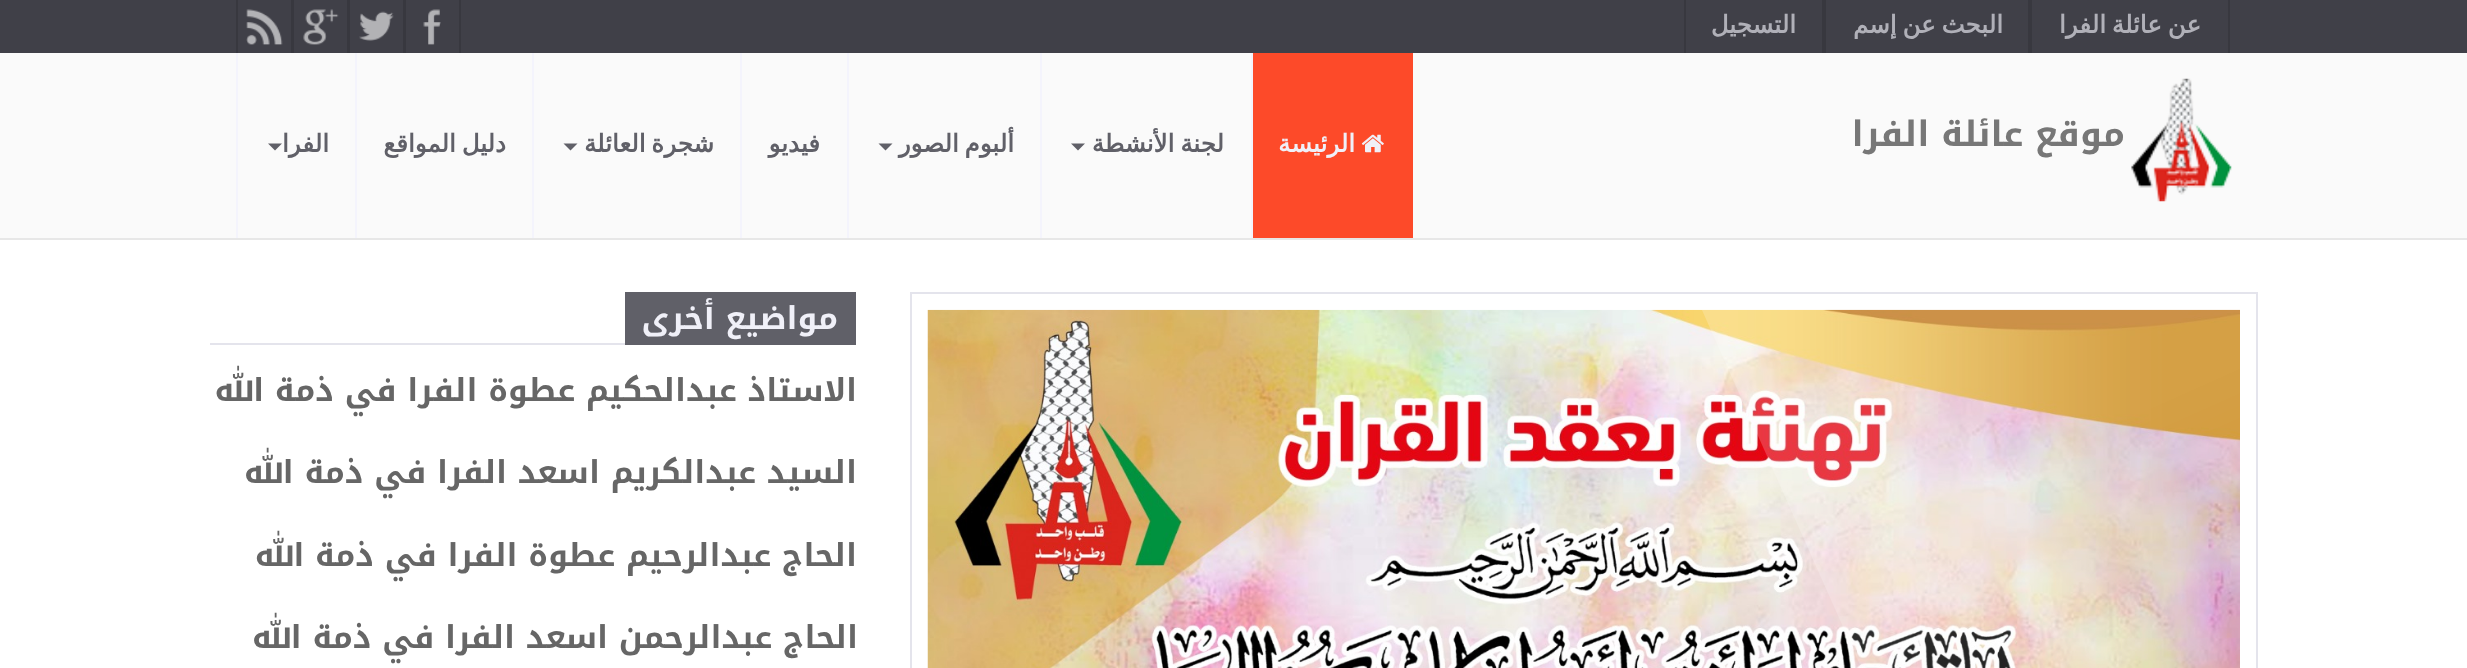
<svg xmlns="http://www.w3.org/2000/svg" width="2467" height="668">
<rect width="100%" height="100%" fill="#fff"/>
<rect width="2467" height="53" fill="#404048"/>
<rect x="2228" width="2" height="53" fill="#38383f"/>
<rect x="2028" width="4" height="53" fill="#38383f"/>
<text x="2201" y="33" word-spacing="-2" style="font-family:DejaVu Sans;font-size:24.5px;font-weight:bold;direction:rtl;fill:#b0b0b8">عن عائلة الفرا</text>
<rect x="1822" width="4" height="53" fill="#38383f"/>
<text x="2003" y="33" word-spacing="-2" style="font-family:DejaVu Sans;font-size:24.5px;font-weight:bold;direction:rtl;fill:#b0b0b8">البحث عن إسم</text>
<rect x="1684" width="2" height="53" fill="#38383f"/>
<text x="1796" y="33" style="font-family:DejaVu Sans;font-size:24.5px;font-weight:bold;direction:rtl;fill:#b0b0b8">التسجيل</text>
<rect x="459" width="2" height="53" fill="#38383f"/>
<rect x="403" width="3" height="53" fill="#38383f"/>
<image x="423" y="9" width="18" height="36" href="media/1.png"/>
<rect x="347" width="3" height="53" fill="#38383f"/>
<image x="359" y="11" width="35" height="30" href="media/2.png"/>
<rect x="291" width="3" height="53" fill="#38383f"/>
<image x="303" y="9" width="36" height="36" href="media/3.png"/>
<rect x="236" width="2" height="53" fill="#38383f"/>
<image x="246" y="9" width="37" height="36" href="media/4.png"/>
<rect y="53" width="2467" height="185" fill="#fafafa"/>
<rect y="238" width="2467" height="2" fill="#e7e7e7"/>
<image x="2131" y="78" width="101" height="124" href="media/5.png"/>
<text x="2125" y="146" style="font-family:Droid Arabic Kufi;font-size:35px;font-weight:bold;direction:rtl;fill:#777">موقع عائلة الفرا</text>
<rect x="1253" y="53" width="160" height="185" fill="#fd4a29"/>
<image x="1361" y="134" width="23" height="19" href="media/6.png"/>
<text x="1355" y="152" style="font-family:DejaVu Sans;font-size:24.5px;font-weight:bold;direction:rtl;fill:#f0f0f8">الرئيسة</text>
<rect x="1251" y="53" width="2" height="185" fill="#f4f4fc"/>
<rect x="1040" y="53" width="2" height="185" fill="#f4f4fc"/>
<text x="1224" y="152" word-spacing="-2" style="font-family:DejaVu Sans;font-size:24.5px;font-weight:bold;direction:rtl;fill:#606068">لجنة الأنشطة</text>
<path d="M1071 143.5h14l-7 7z" fill="#606068"/>
<rect x="847" y="53" width="2" height="185" fill="#f4f4fc"/>
<text x="1014" y="152" word-spacing="-2" style="font-family:DejaVu Sans;font-size:24.5px;font-weight:bold;direction:rtl;fill:#606068">ألبوم الصور</text>
<path d="M878.5 143.5h14l-7 7z" fill="#606068"/>
<rect x="740" y="53" width="2" height="185" fill="#f4f4fc"/>
<text x="820" y="152" style="font-family:DejaVu Sans;font-size:24.5px;font-weight:bold;direction:rtl;fill:#606068">فيديو</text>
<rect x="532" y="53" width="2" height="185" fill="#f4f4fc"/>
<text x="714" y="152" word-spacing="-2" style="font-family:DejaVu Sans;font-size:24.5px;font-weight:bold;direction:rtl;fill:#606068">شجرة العائلة</text>
<path d="M563.5 143.5h14l-7 7z" fill="#606068"/>
<rect x="355" y="53" width="2" height="185" fill="#f4f4fc"/>
<text x="506" y="152" word-spacing="-2" style="font-family:DejaVu Sans;font-size:24.5px;font-weight:bold;direction:rtl;fill:#606068">دليل المواقع</text>
<rect x="236" y="53" width="2" height="185" fill="#f4f4fc"/>
<text x="329" y="152" style="font-family:DejaVu Sans;font-size:24.5px;font-weight:bold;direction:rtl;fill:#606068">الفرا</text>
<path d="M268 143.5h14l-7 7z" fill="#606068"/>
<rect x="911" y="293" width="1346" height="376" fill="none" stroke="#e4e4ec" stroke-width="2"/>
<image x="927" y="309" width="1313" height="359" href="media/7.png"/>
<rect x="210" y="343" width="415" height="2" fill="#e4e4ec"/>
<rect x="625" y="292" width="231" height="53" fill="#606068"/>
<text x="838" y="329" style="font-family:Droid Arabic Kufi;font-size:31.5px;font-weight:bold;direction:rtl;fill:#f0f0f8">مواضيع أخرى</text>
<text x="857" y="401" style="font-family:Droid Arabic Kufi;font-size:31.5px;font-weight:bold;direction:rtl;fill:#666">الاستاذ عبدالحكيم عطوة الفرا في ذمة الله</text>
<text x="857" y="483" style="font-family:Droid Arabic Kufi;font-size:31.5px;font-weight:bold;direction:rtl;fill:#666">السيد عبدالكريم اسعد الفرا في ذمة الله</text>
<text x="857" y="566" style="font-family:Droid Arabic Kufi;font-size:31.5px;font-weight:bold;direction:rtl;fill:#666">الحاج عبدالرحيم عطوة الفرا في ذمة الله</text>
<text x="858" y="648" style="font-family:Droid Arabic Kufi;font-size:31.5px;font-weight:bold;direction:rtl;fill:#666">الحاج عبدالرحمن اسعد الفرا في ذمة الله</text>
</svg>
